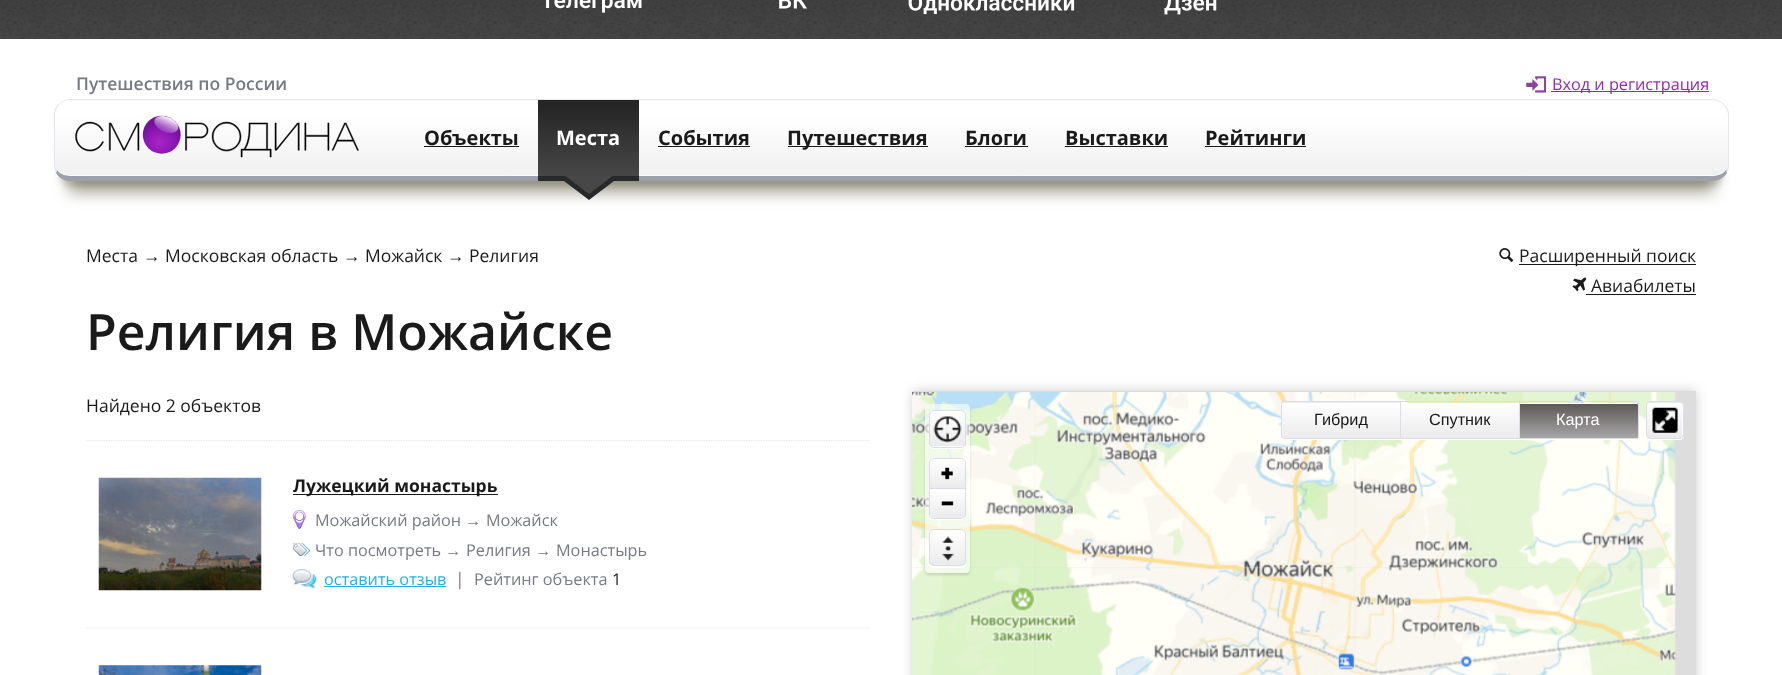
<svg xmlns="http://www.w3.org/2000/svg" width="1782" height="675">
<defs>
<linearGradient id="g1" gradientUnits="userSpaceOnUse" x1="891" y1="39" x2="891" y2="-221"><stop offset="0" stop-color="#474747"/><stop offset="1" stop-color="#232323"/></linearGradient>
<linearGradient id="g2" gradientUnits="userSpaceOnUse" x1="891" y1="100" x2="891" y2="176"><stop offset="0.2" stop-color="#fff"/><stop offset="1" stop-color="#f0f0f0"/></linearGradient>
<linearGradient id="g3" gradientUnits="userSpaceOnUse" x1="588" y1="176" x2="588" y2="100"><stop offset="0" stop-color="#474747"/><stop offset="1" stop-color="#232323"/></linearGradient>
<clipPath id="clip1"><path d="M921 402h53v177h-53zm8 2h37c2 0 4 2 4 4v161c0 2-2 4-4 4h-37c-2 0-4-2-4-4v-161c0-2 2-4 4-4z" clip-rule="evenodd"/></clipPath>
<clipPath id="clip2"><rect x="929" y="410" width="37" height="38" rx="5"/></clipPath>
<linearGradient id="g4" gradientUnits="userSpaceOnUse" x1="948" y1="411" x2="948" y2="446"><stop offset="0" stop-color="#fff"/><stop offset="1" stop-color="#ebebeb"/></linearGradient>
<linearGradient id="g5" gradientUnits="userSpaceOnUse" x1="948" y1="446" x2="948" y2="481"><stop offset="0" stop-color="#fff"/><stop offset="1" stop-color="#ebebeb"/></linearGradient>
<linearGradient id="g6" gradientUnits="userSpaceOnUse" x1="948" y1="459" x2="948" y2="488"><stop offset="0" stop-color="#fff"/><stop offset="1" stop-color="#ebebeb"/></linearGradient>
<linearGradient id="g7" gradientUnits="userSpaceOnUse" x1="948" y1="489" x2="948" y2="518"><stop offset="0" stop-color="#fff"/><stop offset="1" stop-color="#ebebeb"/></linearGradient>
<clipPath id="clip3"><rect x="929" y="529" width="37" height="37" rx="5"/></clipPath>
<linearGradient id="g8" gradientUnits="userSpaceOnUse" x1="948" y1="530" x2="948" y2="565"><stop offset="0" stop-color="#fff"/><stop offset="1" stop-color="#ebebeb"/></linearGradient>
<clipPath id="clip4"><path d="M1283.5 401h117.5v38h-117.5c-1.5 0-2.5-1-2.5-2.5v-33c0-1.5 1-2.5 2.5-2.5z"/></clipPath>
<linearGradient id="g9" gradientUnits="userSpaceOnUse" x1="1341" y1="368" x2="1341" y2="403"><stop offset="0" stop-color="#fff"/><stop offset="1" stop-color="#ebebeb"/></linearGradient>
<linearGradient id="g10" gradientUnits="userSpaceOnUse" x1="1341" y1="403" x2="1341" y2="438"><stop offset="0" stop-color="#fff"/><stop offset="1" stop-color="#ebebeb"/></linearGradient>
<linearGradient id="g11" gradientUnits="userSpaceOnUse" x1="1460" y1="403" x2="1460" y2="438"><stop offset="0" stop-color="#fff"/><stop offset="1" stop-color="#ebebeb"/></linearGradient>
<linearGradient id="g12" gradientUnits="userSpaceOnUse" x1="1579" y1="403" x2="1579" y2="438"><stop offset="0" stop-color="#5b5757"/><stop offset="1" stop-color="#a7a6a6"/></linearGradient>
<clipPath id="clip5"><rect x="1646" y="401" width="38" height="38" rx="5"/></clipPath>
<linearGradient id="g13" gradientUnits="userSpaceOnUse" x1="1665" y1="368" x2="1665" y2="403"><stop offset="0" stop-color="#fff"/><stop offset="1" stop-color="#ebebeb"/></linearGradient>
<linearGradient id="g14" gradientUnits="userSpaceOnUse" x1="1665" y1="403" x2="1665" y2="438"><stop offset="0" stop-color="#fff"/><stop offset="1" stop-color="#ebebeb"/></linearGradient>
</defs>
<rect width="100%" height="100%" fill="#fff"/>
<rect width="1782" height="39" fill="url(#g1)"/>
<image x="0" y="0" width="1782" height="39" href="media/1.png"/>
<image x="546" y="0" width="96" height="13" href="media/2.png"/>
<image x="779" y="0" width="28" height="9" href="media/3.png"/>
<image x="908" y="0" width="167" height="15" href="media/4.png"/>
<image x="1164" y="0" width="53" height="15" href="media/5.png"/>
<text x="76" y="90" style="font-family:Open Sans;font-size:17.5px;font-weight:600;fill:#787a83">Путешествия по России</text>
<image x="1526" y="76" width="20" height="17" href="media/6.png"/>
<rect x="1551" y="91" width="158" height="1" fill="#9428b6"/>
<text x="1552" y="90" style="font-family:Open Sans;font-size:16.25px;fill:#9428b6">Вход и регистрация</text>
<rect x="69" y="140" width="1645" height="53" rx="1" fill="#2b290766" filter="blur(7.5px)"/>
<rect x="60" y="116" width="1663" height="70" rx="10" fill="#2b290733" filter="blur(3px)"/>
<path d="M70 100h1642c9 0 16 7 16 15v50c0 6-7 11-16 11h-1642c-8 0-15-5-15-11v-50c0-8 7-15 15-15z" fill="url(#g2)"/>
<path d="M55 164v1c0 6 7 11 15 11h1642c8 0 13-3 15-8c-2 4-8 7-15 7h-1642c-8 0-15-5-15-11z" fill="#ffffffbf"/>
<path d="M70 99c-4 0-8 2-11 5h1c2-2 6-4 10-4h1642c4 0 8 2 11 4h1c-3-3-8-5-12-5z" fill="#e4e5f1"/>
<path d="M1724 104c2 2 4 5 5 8v56c-1 2-1 3-2 5l-1-3c1-1 2-3 2-5v-50c0-4-2-8-5-11z" fill="#e4e5f1"/>
<path d="M1727 173c-3 5-9 8-15 8h-1642c-6 0-11-3-14-8l1-3c2 3 7 6 13 6h1642c6 0 11-2 14-6z" fill="#9d9fac"/>
<path d="M59 104c-3 2-5 6-5 11v50c0 3 1 5 2 8l1-3c-1-2-2-3-2-5v-50c0-4 2-8 5-11z" fill="#e4e5f1"/>
<image x="75" y="115" width="284" height="43" href="media/7.png"/>
<text x="424" y="145" style="font-family:Open Sans;font-size:20px;font-weight:bold;fill:#1a1a1a">Объекты</text>
<rect x="424" y="146" width="95" height="1" fill="#1a1a1a"/>
<rect x="538" y="100" width="101" height="76" fill="url(#g3)"/>
<text x="556" y="145" style="font-family:Open Sans;font-size:20px;font-weight:bold;fill:#fff">Места</text>
<rect x="538" y="176" width="101" height="5" fill="#28292b"/>
<path d="M564 181h50l-25 19z" fill="#28292b"/>
<path d="M564 175h50l-25 19z" fill="#474747"/>
<text x="658" y="145" style="font-family:Open Sans;font-size:20px;font-weight:bold;fill:#1a1a1a">События</text>
<rect x="658" y="146" width="92" height="1" fill="#1a1a1a"/>
<rect x="788" y="146" width="140" height="1" fill="#1a1a1a"/>
<text x="787" y="145" style="font-family:Open Sans;font-size:20px;font-weight:bold;fill:#1a1a1a">Путешествия</text>
<text x="965" y="145" style="font-family:Open Sans;font-size:20px;font-weight:bold;fill:#1a1a1a">Блоги</text>
<rect x="965" y="146" width="63" height="1" fill="#1a1a1a"/>
<text x="1065" y="145" style="font-family:Open Sans;font-size:20px;font-weight:bold;fill:#1a1a1a">Выставки</text>
<rect x="1065" y="146" width="103" height="1" fill="#1a1a1a"/>
<text x="1205" y="145" style="font-family:Open Sans;font-size:20px;font-weight:bold;fill:#1a1a1a">Рейтинги</text>
<rect x="1205" y="146" width="101" height="1" fill="#1a1a1a"/>
<text x="86" y="262" style="font-family:Open Sans;font-size:17.5px;fill:#1a1a1a">Места</text>
<text x="143" y="262" style="font-family:Liberation Sans;font-size:17.5px;fill:#1a1a1a">→</text>
<text x="165" y="262" style="font-family:Open Sans;font-size:17.5px;fill:#1a1a1a">Московская область</text>
<text x="343" y="262" style="font-family:Liberation Sans;font-size:17.5px;fill:#1a1a1a">→</text>
<text x="365" y="262" style="font-family:Open Sans;font-size:17.5px;fill:#1a1a1a">Можайск</text>
<text x="447" y="262" style="font-family:Liberation Sans;font-size:17.5px;fill:#1a1a1a">→</text>
<text x="469" y="262" style="font-family:Open Sans;font-size:17.5px;fill:#1a1a1a">Религия</text>
<image x="1499" y="248" width="15" height="14" href="media/8.png"/>
<rect x="1519" y="264" width="177" height="1" fill="#1a1a1a"/>
<text x="1519" y="262" style="font-family:Open Sans;font-size:17.5px;fill:#1a1a1a">Расширенный поиск</text>
<image x="1572" y="277" width="15" height="15" href="media/9.png"/>
<text x="1591" y="292" style="font-family:Open Sans;font-size:17.5px;fill:#1a1a1a">Авиабилеты</text>
<rect x="1586" y="294" width="110" height="1" fill="#1a1a1a"/>
<text x="86" y="350" style="font-family:Open Sans;font-size:50px;font-weight:600;fill:#1a1a1a">Религия в Можайске</text>
<text x="86" y="412" style="font-family:Open Sans;font-size:17.5px;fill:#1a1a1a">Найдено 2 объектов</text>
<path d="M86 440.5h784" fill="none" stroke="#e4e5f1" stroke-width="1.2" stroke-dasharray="1.25 1.25"/>
<image x="98" y="477" width="164" height="114" href="media/10.png"/>
<rect x="293" y="494" width="205" height="1" fill="#1a1a1a"/>
<text x="293" y="492" style="font-family:Open Sans;font-size:17.5px;font-weight:bold;fill:#1a1a1a">Лужецкий монастырь</text>
<image x="293" y="510" width="13" height="19" href="media/11.png"/>
<text x="315" y="526" style="font-family:Open Sans;font-size:16.25px;fill:#787a83">Можайский район</text>
<text x="465" y="526" style="font-family:Liberation Sans;font-size:16.25px;fill:#787a83">→</text>
<text x="486" y="526" style="font-family:Open Sans;font-size:16.25px;fill:#787a83">Можайск</text>
<image x="293" y="543" width="17" height="13" href="media/12.png"/>
<text x="315" y="556" style="font-family:Open Sans;font-size:16.25px;fill:#787a83">Что посмотреть</text>
<text x="445" y="556" style="font-family:Liberation Sans;font-size:16.25px;fill:#787a83">→</text>
<text x="466" y="556" style="font-family:Open Sans;font-size:16.25px;fill:#787a83">Религия</text>
<text x="535" y="556" style="font-family:Liberation Sans;font-size:16.25px;fill:#787a83">→</text>
<text x="556" y="556" style="font-family:Open Sans;font-size:16.25px;fill:#787a83">Монастырь</text>
<image x="292" y="569" width="25" height="19" href="media/13.png"/>
<text x="324" y="585" style="font-family:Open Sans;font-size:16.25px;fill:#21b0e6">оставить отзыв</text>
<rect x="324" y="586" width="122" height="1" fill="#21b0e6"/>
<text x="455" y="585" style="font-family:Open Sans;font-size:17.5px;fill:#787a83">|</text>
<text x="474" y="585" style="font-family:Open Sans;font-size:16.25px;fill:#787a83">Рейтинг объекта</text>
<text x="612" y="585" style="font-family:Open Sans;font-size:16.25px;fill:#1a1a1a">1</text>
<path d="M86 628h784" fill="none" stroke="#e4e5f1" stroke-width="1.2" stroke-dasharray="1.25 1.25"/>
<image x="98" y="665" width="164" height="10" href="media/14.png"/>
<rect x="913" y="391" width="783" height="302" fill="#00000033" filter="blur(6px)"/>
<rect x="913" y="391" width="783" height="284" fill="#ddd"/>
<image x="1034" y="392" width="322" height="177" href="media/16.png"/>
<image x="1354" y="392" width="322" height="177" href="media/17.png"/>
<image x="1034" y="567" width="322" height="108" href="media/19.png"/>
<image x="912" y="392" width="124" height="177" href="media/15.png"/>
<image x="912" y="567" width="124" height="108" href="media/18.png"/>
<image x="1354" y="567" width="322" height="108" href="media/20.png"/>
<g clip-path="url(#clip1)">
<rect x="925" y="406" width="45" height="169" rx="4" fill="#00000021" filter="blur(1px)"/>
</g>
<rect x="925" y="404" width="45" height="169" rx="4" fill="#ffffff99"/>
<path d="M929 444c0 3 2.5 5 5 5h27c2.5 0 5-2 5-5c-.5 2-2.5 3.5-5 3.5h-27c-2.5 0-4.5-1.5-5-3.5z" fill="#fff"/>
<g clip-path="url(#clip2)">
<rect x="929" y="411" width="37" height="35" fill="url(#g4)"/>
<rect x="929" y="446" width="37" height="2" fill="url(#g5)"/>
</g>
<rect x="929.5" y="410.5" width="36" height="37" rx="4.5" fill="none" stroke="#dcdde9"/>
<image x="933" y="416" width="29" height="28" href="media/21.png"/>
<path d="M929 515.5c0 2.5 2.5 4.5 5 4.5h27c2.5 0 5-2 5-4.5c-.5 2-2.5 3.5-5 3.5h-27c-2.5 0-4.5-1.5-5-3.5zm5-55.5h27c2 0 4 2 4 4c0-5.5-4-5-8.5-5h-18c-4.5 0-8.5-.5-8.5 5c0-2 2-4 4-4z" fill="#fff"/>
<rect x="929.5" y="458.5" width="36" height="60" rx="4.5" fill="none" stroke="#dcdde9"/>
<path d="M935 459h25c3 0 5 2 5 5v24h-35v-24c0-3 2-5 5-5z" fill="url(#g6)"/>
<rect x="930" y="488" width="35" height="1" fill="#dcdde9"/>
<image x="941" y="467" width="12" height="13" href="media/22.png"/>
<path d="M930 489h35v24c0 3-2 5-5 5h-25c-3 0-5-2-5-5z" fill="url(#g7)"/>
<image x="941" y="501" width="13" height="5" href="media/23.png"/>
<path d="M929 563c0 5.5 5.5 5 9.5 5h18c4 0 9.5 .5 9.5-5c-.5 2-2.5 3-5 3h-27c-2.5 0-4.5-1-5-3z" fill="#fff"/>
<g clip-path="url(#clip3)">
<rect x="929" y="530" width="37" height="35" fill="url(#g8)"/>
</g>
<rect x="929.5" y="529.5" width="36" height="36" rx="4.5" fill="none" stroke="#dcdde9"/>
<image x="942" y="536" width="12" height="25" href="media/24.png"/>
<path d="M1281 404v34c0 1 1 2 3 2h117v-1h-117c-2 0-3-1-3-3z" fill="#fff"/>
<g clip-path="url(#clip4)">
<rect x="1281" y="401" width="120" height="2" fill="url(#g9)"/>
</g>
<rect x="1281" y="403" width="119" height="35" fill="url(#g10)"/>
<path d="M1283.5 401.5h117v37h-117c-1 0-2-1-2-2v-33c0-1 1-2 2-2z" fill="none" stroke="#dcdde9"/>
<text x="1314" y="425" style="font-family:Liberation Sans;font-size:16.25px;fill:#1a1a1a">Гибрид</text>
<path d="M1401 403v37h119v-1h-119z" fill="#fff"/>
<rect x="1401" y="403" width="118" height="35" fill="url(#g11)"/>
<rect x="1401" y="401" width="237" height="1" fill="#dcdde9"/>
<rect x="1519" y="401" width="1" height="38" fill="#dcdde9"/>
<rect x="1401" y="438" width="119" height="1" fill="#dcdde9"/>
<text x="1429" y="425" style="font-family:Liberation Sans;font-size:16.25px;fill:#1a1a1a">Спутник</text>
<path d="M1520 439v1h116c2 0 3-1 3-2v-34v32c0 2-1 3-3 3z" fill="#fff"/>
<path d="M1520 403h117c.5 0 1 .5 1 1v33c0 .5-.5 1-1 1h-117z" fill="url(#g12)"/>
<path d="M1520 404h116c1 0 2 0 2 1c0-1 0-2-1-2h-117z" fill="#fff"/>
<rect x="1638" y="403" width="1" height="35" fill="#dcdde9"/>
<rect x="1520" y="438" width="118" height="1" fill="#dcdde9"/>
<text x="1556" y="425" style="font-family:Liberation Sans;font-size:16.25px;fill:#fff">Карта</text>
<path d="M1646 406.5v1.5v27c0 3 2 5 5 5h28c3 0 5-2 5-5v-27v-1.5v27.5c0 2.5-2.5 5-5 5h-28c-2.5 0-5-2.5-5-5z" fill="#fff"/>
<g clip-path="url(#clip5)">
<rect x="1646" y="401" width="38" height="2" fill="url(#g13)"/>
<rect x="1646" y="403" width="38" height="35" fill="url(#g14)"/>
</g>
<path d="M1651 404h28c2 0 3 1 3 4v27l-.5 2c2-2 1.5-5 1.5-7.5v-9c0-20 2.5-17.5-17.5-17.5h-9c-4.5 0-8.5-.5-8.5 5c0-3 1-4 3-4z" fill="#fff"/>
<rect x="1646.5" y="401.5" width="37" height="37" rx="4.5" fill="none" stroke="#dcdde9"/>
<image x="1652" y="407" width="26" height="26" href="media/25.png"/>
</svg>
